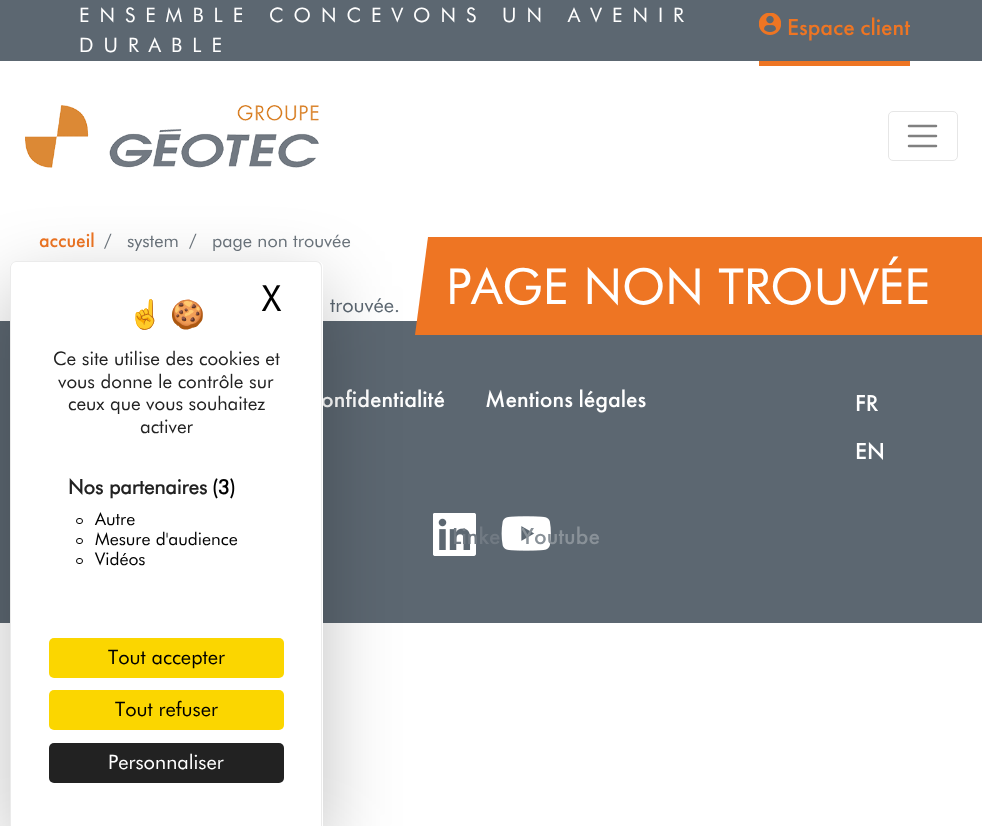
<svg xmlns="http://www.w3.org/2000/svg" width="982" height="826">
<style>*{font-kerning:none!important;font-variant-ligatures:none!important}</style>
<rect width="100%" height="100%" fill="#fff"/>
<rect width="982" height="61" fill="#5c6771"/>
<text x="79" y="22" style="font-family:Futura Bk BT;font-size:20px;letter-spacing:10px;fill:#fff">ENSEMBLE CONCEVONS UN AVENIR</text>
<text x="79" y="52" style="font-family:Futura Bk BT;font-size:20px;letter-spacing:10px;fill:#fff">DURABLE</text>
<image x="759" y="13" width="22" height="22" href="media/1.png"/>
<text x="787" y="35" style="font-family:Futura PT;font-size:24px;font-weight:500;fill:#ee7523">Espace client</text>
<rect x="759" y="61" width="151" height="5" fill="#ee7523"/>
<image x="25" y="105" width="294" height="63" href="media/2.png"/>
<rect x="888.5" y="111.5" width="69" height="49" rx="4.5" fill="none" stroke="#e6e6e6"/>
<path d="M909 126h27m-27 10h27m-27 10h27" fill="none" stroke="#808080" stroke-width="2.5" stroke-linecap="round"/>
<text x="39" y="247" style="font-family:Futura PT;font-size:20px;font-weight:500;fill:#ee7523">accueil</text>
<text x="104" y="247" style="font-family:Futura Bk BT;font-size:18px;fill:#6c757d">/</text>
<text x="127" y="247" style="font-family:Futura Bk BT;font-size:18px;fill:#6c757d">system</text>
<text x="189" y="247" style="font-family:Futura Bk BT;font-size:18px;fill:#6c757d">/</text>
<text x="212" y="247" style="font-family:Futura Bk BT;font-size:18px;fill:#6c757d">page non trouvée</text>
<text x="330" y="312" style="font-family:Futura Bk BT;font-size:20px;fill:#5c6771">trouvée.</text>
<rect y="321" width="982" height="302" fill="#5c6771"/>
<path d="M428 237h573l-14 98h-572z" fill="#ee7523"/>
<text x="446" y="304" style="font-family:Futura Bk BT;font-size:49.75px;fill:#fff">PAGE NON TROUVÉE</text>
<text x="321" y="407" style="font-family:Futura PT;font-size:24px;font-weight:500;fill:#fff">onfidentialité</text>
<text x="485" y="407" style="font-family:Futura PT;font-size:24px;font-weight:500;fill:#fff">Mentions légales</text>
<text x="855" y="411" style="font-family:Futura PT;font-size:24px;font-weight:500;fill:#fff">FR</text>
<text x="855" y="459" style="font-family:Futura PT;font-size:24px;font-weight:500;fill:#fff">EN</text>
<image x="433" y="513" width="43" height="43" href="media/3.png"/>
<text x="452" y="544" style="font-family:Futura PT;font-size:24px;font-weight:500;fill:#717a83">Linke</text>
<image x="501" y="516" width="50" height="35" href="media/4.png"/>
<text x="521" y="544" style="font-family:Futura PT;font-size:24px;font-weight:500;fill:#899198">Youtube</text>
<rect x="10" y="286" width="313" height="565" rx="6" fill="#00000040" filter="blur(37.5px)"/>
<path d="M16 261h301c3.5 0 6 2.5 6 6v559h-313v-559c0-3.5 2.5-6 6-6z" fill="#fff"/>
<path d="M16 261h300c4 0 6 3 6 7v558h-312v-558c0-4 3-7 6-7zm0 1h300c3 0 5 3 5 6v558h-310v-558c0-3 2-6 5-6z" fill="#ebebeb" fill-rule="evenodd"/>
<text x="128" y="324" style="font-family:Noto Color Emoji;font-size:28px;fill:#222">☝️</text>
<text x="170" y="324" style="font-family:Noto Color Emoji;font-size:28px;fill:#222">🍪</text>
<text x="262" y="311" style="font-family:Futura Bk BT;font-size:36px;fill:#000">X</text>
<text x="53" y="365" style="font-family:Futura Bk BT;font-size:18.75px;fill:#222">Ce site utilise des cookies et</text>
<text x="58" y="388" style="font-family:Futura Bk BT;font-size:18.75px;fill:#222">vous donne le contrôle sur</text>
<text x="68" y="410" style="font-family:Futura Bk BT;font-size:18.75px;fill:#222">ceux que vous souhaitez</text>
<text x="140" y="433" style="font-family:Futura Bk BT;font-size:18.75px;fill:#222">activer</text>
<text x="68" y="494" style="font-family:Futura Bk BT;font-size:20px;font-weight:bold;fill:#222">Nos partenaires</text>
<text x="212" y="494" style="font-family:Futura Bk BT;font-size:20px;font-weight:bold;fill:#000">(3)</text>
<rect x="76.5" y="518.5" width="6" height="5" rx="2.5" fill="none" stroke="#000"/>
<text x="95" y="525" style="font-family:Futura Bk BT;font-size:17.5px;fill:#000">Autre</text>
<rect x="76.5" y="538.5" width="6" height="5" rx="2.5" fill="none" stroke="#000"/>
<text x="95" y="545" style="font-family:Futura Bk BT;font-size:17.5px;fill:#000">Mesure d'audience</text>
<rect x="76.5" y="558.5" width="6" height="5" rx="2.5" fill="none" stroke="#000"/>
<text x="95" y="565" style="font-family:Futura Bk BT;font-size:17.5px;fill:#000">Vidéos</text>
<rect x="49" y="638" width="235" height="40" rx="5" fill="#fbd600"/>
<text x="108" y="664" style="font-family:Futura Bk BT;font-size:20px;fill:#000">Tout accepter</text>
<rect x="49" y="690" width="235" height="40" rx="5" fill="#fbd600"/>
<text x="115" y="716" style="font-family:Futura Bk BT;font-size:20px;fill:#000">Tout refuser</text>
<rect x="49" y="743" width="235" height="40" rx="5" fill="#222"/>
<text x="108" y="769" style="font-family:Futura Bk BT;font-size:20px;fill:#fff">Personnaliser</text>
</svg>
